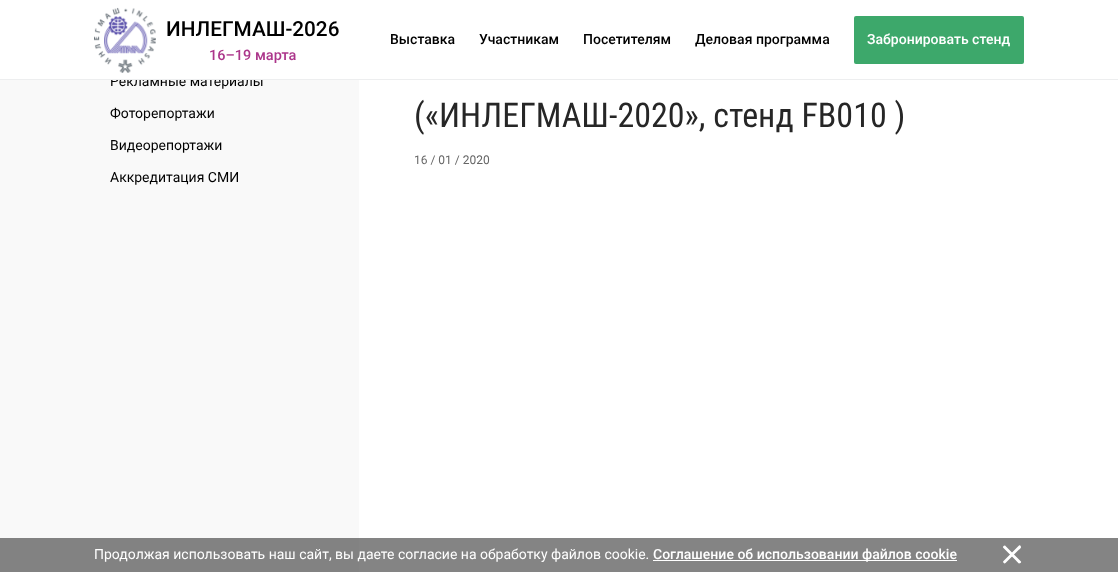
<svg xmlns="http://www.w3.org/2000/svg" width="1118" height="572">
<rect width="100%" height="100%" fill="#fff"/>
<rect x="359" y="538" width="759" height="34" fill="#848484"/>
<rect y="80" width="359" height="458" fill="#f9f9f9"/>
<text x="110" y="86" style="font-family:Roboto;font-size:14px;fill:#000">Рекламные материалы</text>
<rect x="111" y="76" width="152" height="3" fill="#fff"/>
<rect y="79" width="1118" height="1" fill="#edeeef"/>
<image x="94" y="7" width="62" height="66" href="media/1.png"/>
<text x="166" y="36" style="font-family:Roboto;font-size:20.75px;font-weight:500;fill:#000">ИНЛЕГМАШ-2026</text>
<text x="209" y="60" style="font-family:Roboto;font-size:14.5px;font-weight:500;fill:#ac368b">16–19 марта</text>
<text x="390" y="44" style="font-family:Roboto;font-size:14px;font-weight:500;fill:#000">Выставка</text>
<text x="479" y="44" style="font-family:Roboto;font-size:14px;font-weight:500;fill:#000">Участникам</text>
<text x="583" y="44" style="font-family:Roboto;font-size:14px;font-weight:500;fill:#000">Посетителям</text>
<text x="695" y="44" style="font-family:Roboto;font-size:14px;font-weight:500;fill:#000">Деловая программа</text>
<rect x="854" y="16" width="170" height="48" rx="2" fill="#3da86b"/>
<text x="867" y="44" style="font-family:Roboto;font-size:14px;font-weight:500;fill:#fff">Забронировать стенд</text>
<text x="110" y="118" style="font-family:Roboto;font-size:14px;fill:#000">Фоторепортажи</text>
<text x="110" y="150" style="font-family:Roboto;font-size:14px;fill:#000">Видеорепортажи</text>
<text x="110" y="182" style="font-family:Roboto;font-size:14px;fill:#000">Аккредитация СМИ</text>
<text x="414" y="127" style="font-family:Roboto Condensed;font-size:34px;fill:#262626">(«ИНЛЕГМАШ-2020», стенд FB010 )</text>
<text x="414" y="164" style="font-family:Roboto;font-size:12px;fill:#666">16 / 01 / 2020</text>
<rect y="538" width="359" height="34" fill="#828282"/>
<text x="94" y="559" style="font-family:Roboto;font-size:14px;fill:#fff">Продолжая использовать наш сайт, вы даете согласие на обработку файлов cookie.</text>
<rect x="653" y="560" width="304" height="1" fill="#fff"/>
<text x="653" y="559" style="font-family:Roboto;font-size:14px;font-weight:500;fill:#fff">Cоглашение об использовании файлов cookie</text>
<path d="M1005.5 546l15.5 15.5c.5 1-.5 2-2 2c-1-.5-3-3-3-3l-12.5-12.5c-1.5-1 1-3.5 2-2z" fill="#fff"/>
<path d="M1003.5 561l15.5-15.5c1-.5 2 .5 2 2c-.5 1-3 3-3 3l-12.5 12.5c-1 1.5-3.5-1-2-2z" fill="#fff"/>
</svg>
